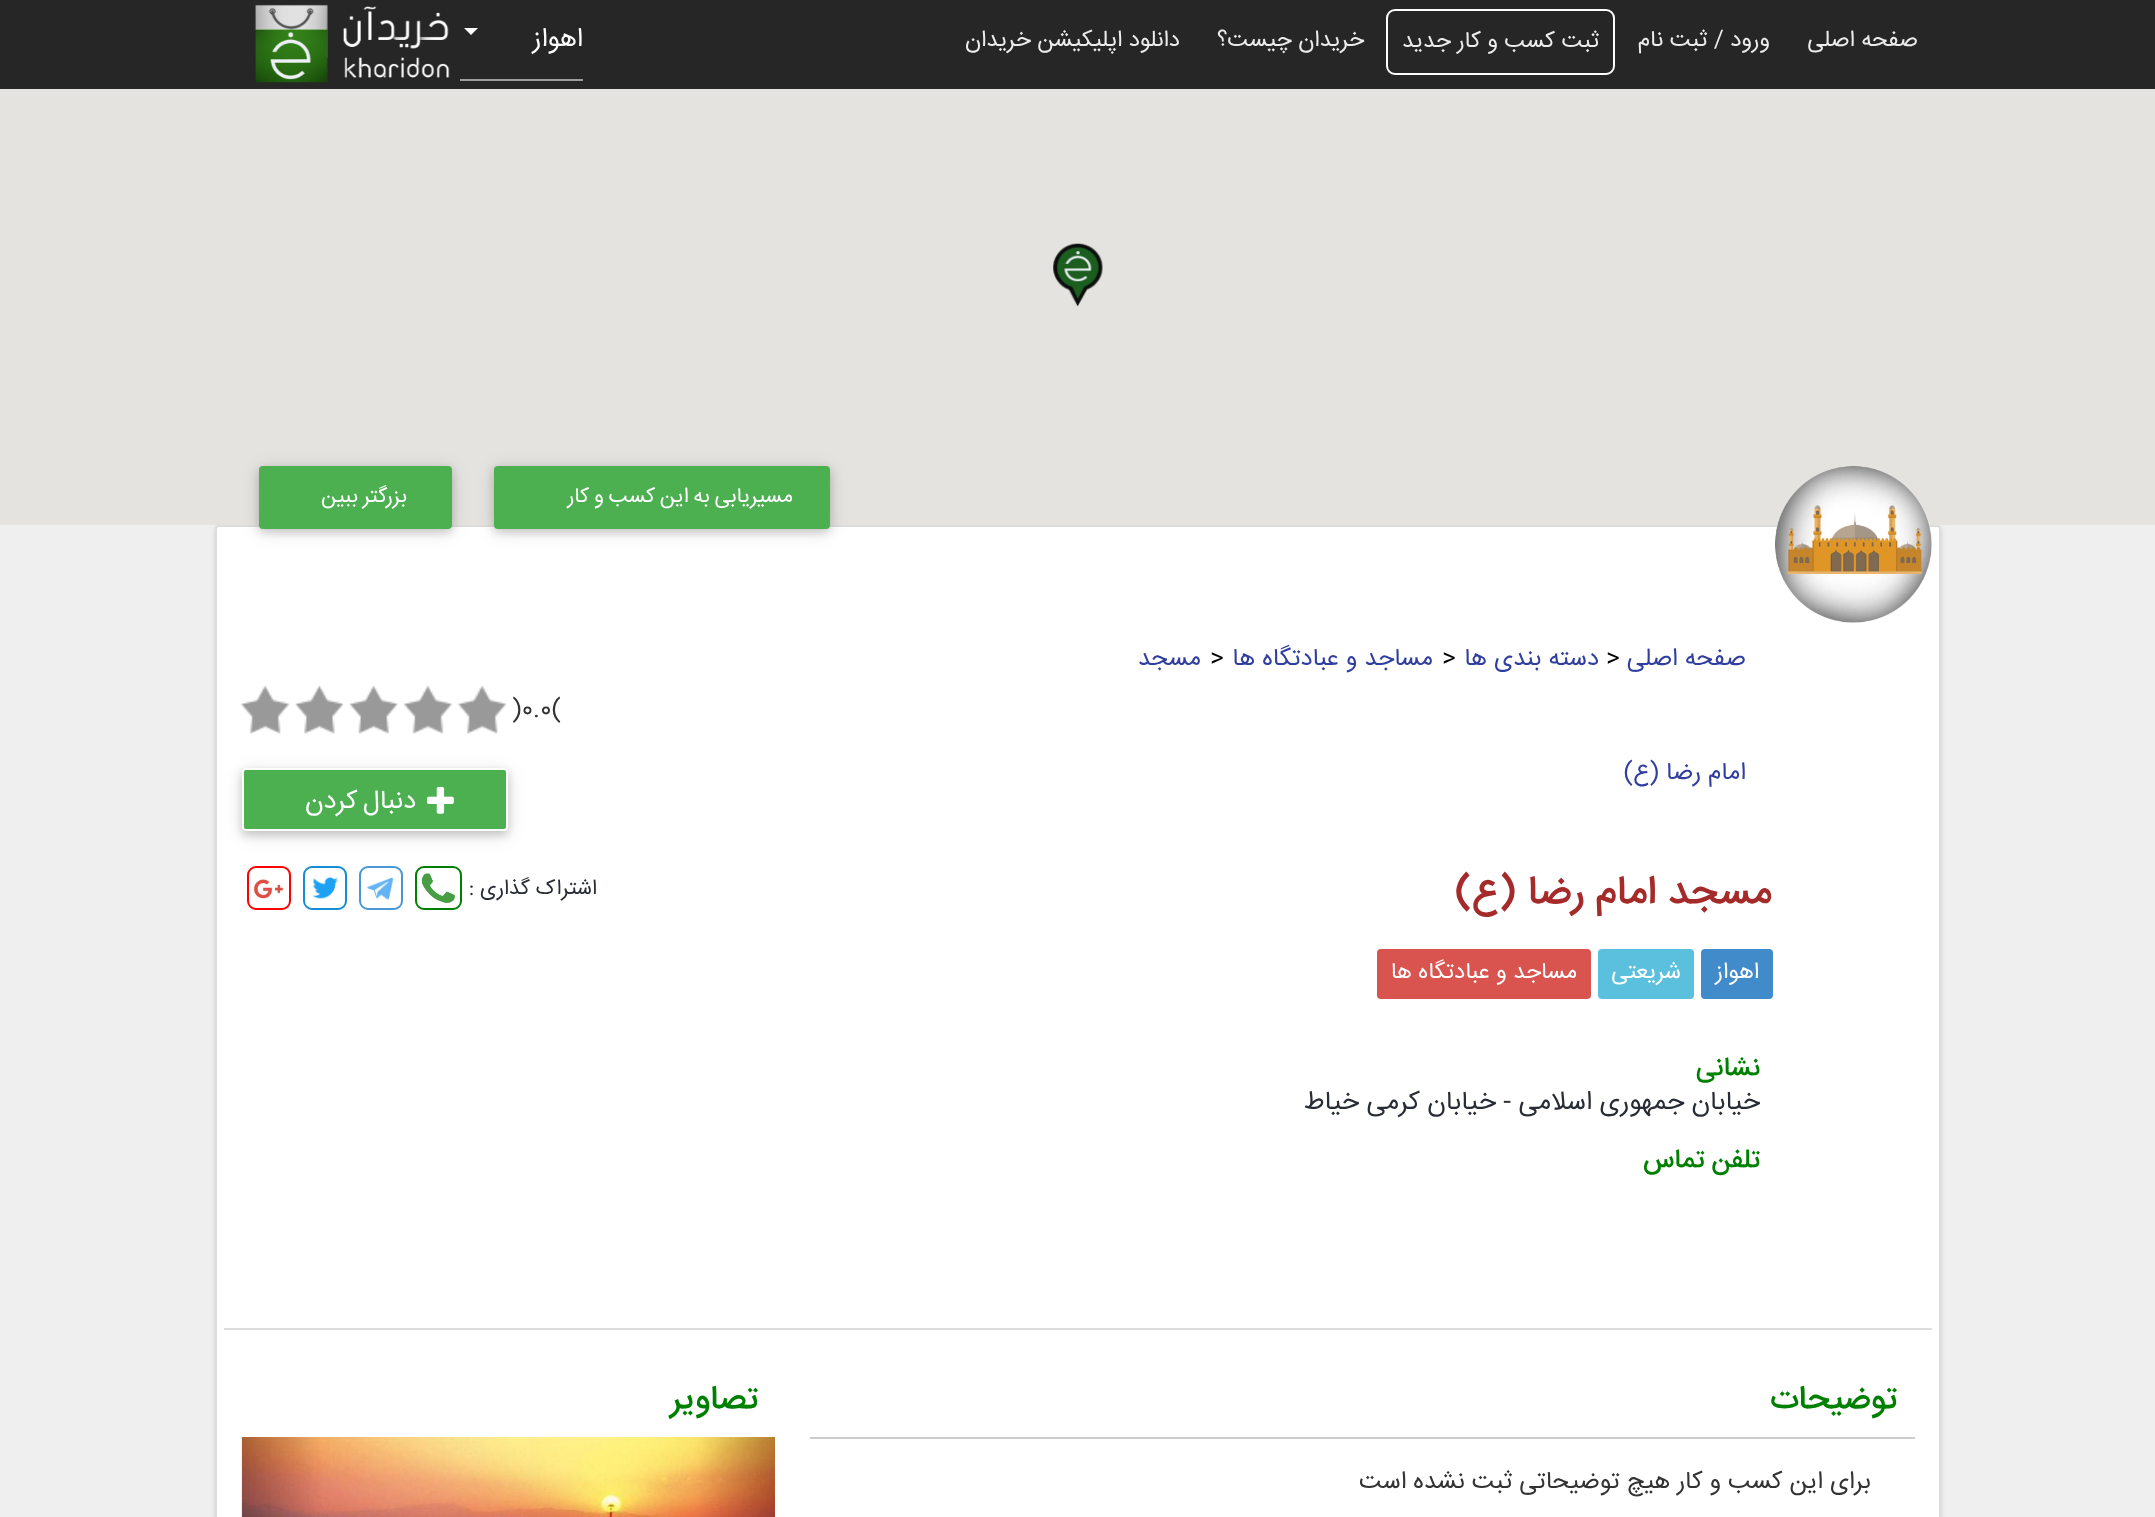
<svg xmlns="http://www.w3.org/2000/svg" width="2155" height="1517">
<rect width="100%" height="100%" fill="#efefef"/>
<rect width="2155" height="89" fill="#262626"/>
<text x="1918" y="46" style="font-family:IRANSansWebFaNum;font-size:22.75px;direction:rtl;fill:#ececec">صفحه اصلی</text>
<text x="1770" y="46" style="font-family:IRANSansWebFaNum;font-size:22.75px;direction:rtl;fill:#ececec">ورود / ثبت نام</text>
<rect x="1387" y="10" width="227" height="64" rx="8" fill="none" stroke="#fff" stroke-width="2"/>
<text x="1599" y="47" style="font-family:IRANSansWebFaNum;font-size:22.75px;direction:rtl;fill:#ececec">ثبت کسب و کار جدید</text>
<text x="1364" y="46" style="font-family:IRANSansWebFaNum;font-size:22.75px;direction:rtl;fill:#ececec">خریدان چیست؟</text>
<text x="1180" y="46" style="font-family:IRANSansWebFaNum;font-size:22.75px;direction:rtl;fill:#ececec">دانلود اپلیکیشن خریدان</text>
<rect x="460" y="79" width="123" height="2" fill="#9e9e9e"/>
<text x="583" y="46" style="font-family:IRANSansWebFaNum;font-size:26.25px;direction:rtl;fill:#fff">اهواز</text>
<path d="M464 28h14l-7 7z" fill="#fff"/>
<image x="255" y="4" width="195" height="79" href="media/1.png"/>
<rect x="215" y="527" width="1726" height="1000" rx="4" fill="#00000021" filter="blur(2px)"/>
<rect y="89" width="2155" height="436" fill="#e5e3df"/>
<image x="1053" y="243" width="50" height="64" href="media/2.png"/>
<rect x="216" y="526" width="1724" height="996" rx="3" fill="#fff" stroke="#ddd" stroke-width="2"/>
<circle cx="1853.5" cy="544.5" r="78.5" fill="#efefef"/>
<image x="1775" y="466" width="157" height="157" href="media/3.png"/>
<text x="1746" y="665" style="font-family:IRANSansWebFaNum;font-size:24.5px;direction:rtl;fill:#303f9f">صفحه اصلی</text>
<text x="1606" y="665" style="font-family:IRANSansWebFaNum;font-size:24.5px;fill:#000">&gt;</text>
<text x="1599" y="665" style="font-family:IRANSansWebFaNum;font-size:24.5px;direction:rtl;fill:#303f9f">دسته بندی ها</text>
<text x="1442" y="665" style="font-family:IRANSansWebFaNum;font-size:24.5px;fill:#000">&gt;</text>
<text x="1433" y="665" style="font-family:IRANSansWebFaNum;font-size:24.5px;direction:rtl;fill:#303f9f">مساجد و عبادتگاه ها</text>
<text x="1210" y="665" style="font-family:IRANSansWebFaNum;font-size:24.5px;fill:#000">&gt;</text>
<text x="1201" y="665" style="font-family:IRANSansWebFaNum;font-size:24.5px;direction:rtl;fill:#303f9f">مسجد</text>
<text x="1746" y="779" style="font-family:IRANSansWebFaNum;font-size:24.5px;direction:rtl;fill:#303f9f">امام رضا (ع)</text>
<text x="1772" y="903" style="font-family:IRANSansWebFaNum;font-size:40.25px;font-weight:500;direction:rtl;fill:#a52a2a">مسجد امام رضا (ع)</text>
<rect x="1701" y="949" width="72" height="50" rx="4" fill="#428bca"/>
<text x="1759" y="978" style="font-family:IRANSansWebFaNum;font-size:22.75px;direction:rtl;fill:#fff">اهواز</text>
<rect x="1598" y="949" width="96" height="50" rx="4" fill="#5bc0de"/>
<text x="1681" y="978" style="font-family:IRANSansWebFaNum;font-size:22.75px;direction:rtl;fill:#fff">شریعتی</text>
<rect x="1377" y="949" width="214" height="50" rx="4" fill="#d9534f"/>
<text x="1577" y="978" style="font-family:IRANSansWebFaNum;font-size:22.75px;direction:rtl;fill:#fff">مساجد و عبادتگاه ها</text>
<text x="1760" y="1075" style="font-family:IRANSansWebFaNum;font-size:26.25px;font-weight:500;direction:rtl;fill:#008000">نشانی</text>
<text x="1760" y="1109" style="font-family:IRANSansWebFaNum;font-size:26.25px;direction:rtl;fill:#282c35">خیابان جمهوری اسلامی - خیابان کرمی خیاط</text>
<text x="1760" y="1167" style="font-family:IRANSansWebFaNum;font-size:26.25px;font-weight:500;direction:rtl;fill:#008000">تلفن تماس</text>
<rect x="494" y="469" width="336" height="63" rx="4" fill="#0000001f" filter="blur(9px)"/>
<rect x="494" y="469" width="336" height="63" rx="4" fill="#00000029" filter="blur(4.5px)"/>
<rect x="494" y="466" width="336" height="63" rx="4" fill="#4caf50"/>
<text x="793" y="502" word-spacing="-1.25" style="font-family:IRANSansWebFaNum;font-size:21px;letter-spacing:0.9px;direction:rtl;fill:#fff">مسیریابی به این کسب و کار</text>
<rect x="259" y="469" width="193" height="63" rx="4" fill="#0000001f" filter="blur(9px)"/>
<rect x="259" y="469" width="193" height="63" rx="4" fill="#00000029" filter="blur(4.5px)"/>
<rect x="259" y="466" width="193" height="63" rx="4" fill="#4caf50"/>
<text x="407" y="502" word-spacing="-1.25" style="font-family:IRANSansWebFaNum;font-size:21px;letter-spacing:0.9px;direction:rtl;fill:#fff">بزرگتر ببین</text>
<text x="512" y="716" style="font-family:IRANSansWebFaNum;font-size:24.5px;fill:#333">)0.0(</text>
<image x="458" y="686" width="48" height="48" href="media/4.png"/>
<image x="404" y="686" width="48" height="48" href="media/5.png"/>
<image x="350" y="686" width="48" height="48" href="media/6.png"/>
<image x="295" y="686" width="48" height="48" href="media/7.png"/>
<image x="241" y="686" width="48" height="48" href="media/8.png"/>
<rect x="242" y="772" width="266" height="63" rx="4" fill="#0000001f" filter="blur(9px)"/>
<rect x="242" y="772" width="266" height="63" rx="4" fill="#00000029" filter="blur(4.5px)"/>
<rect x="243" y="769" width="264" height="61" rx="3" fill="#4caf50" stroke="#fff" stroke-width="2"/>
<image x="427" y="786" width="27" height="28" href="media/9.png"/>
<text x="416" y="808" word-spacing="-2" style="font-family:IRANSansWebFaNum;font-size:26.25px;letter-spacing:0.9px;direction:rtl;fill:#fff">دنبال کردن</text>
<rect x="416" y="867" width="45" height="42" rx="8" fill="none" stroke="#008000" stroke-width="2"/>
<rect x="360" y="867" width="42" height="42" rx="8" fill="none" stroke="#4b96d4" stroke-width="2"/>
<rect x="304" y="867" width="42" height="42" rx="8" fill="none" stroke="#158dd6" stroke-width="2"/>
<rect x="248" y="867" width="42" height="42" rx="8" fill="none" stroke="#f00" stroke-width="2"/>
<text x="597" y="894" style="font-family:IRANSansWebFaNum;font-size:21px;direction:rtl;fill:#282c35">اشتراک گذاری :</text>
<image x="421" y="873" width="34" height="30" href="media/10.png"/>
<image x="366" y="877" width="28" height="23" href="media/11.png"/>
<image x="312" y="877" width="26" height="22" href="media/12.png"/>
<image x="253" y="879" width="30" height="20" href="media/13.png"/>
<rect x="224" y="1328" width="1708" height="2" fill="#ddd"/>
<text x="1897" y="1408" style="font-family:IRANSansWebFaNum;font-size:33px;font-weight:500;direction:rtl;fill:#008000">توضیحات</text>
<rect x="810" y="1437" width="1105" height="2" fill="#ccc"/>
<text x="1871" y="1488" style="font-family:IRANSansWebFaNum;font-size:24.5px;direction:rtl;fill:#333">برای این کسب و کار هیچ توضیحاتی ثبت نشده است</text>
<text x="758" y="1408" style="font-family:IRANSansWebFaNum;font-size:33px;font-weight:500;direction:rtl;fill:#008000">تصاویر</text>
<image x="241" y="1437" width="534" height="80" href="media/14.png"/>
</svg>
